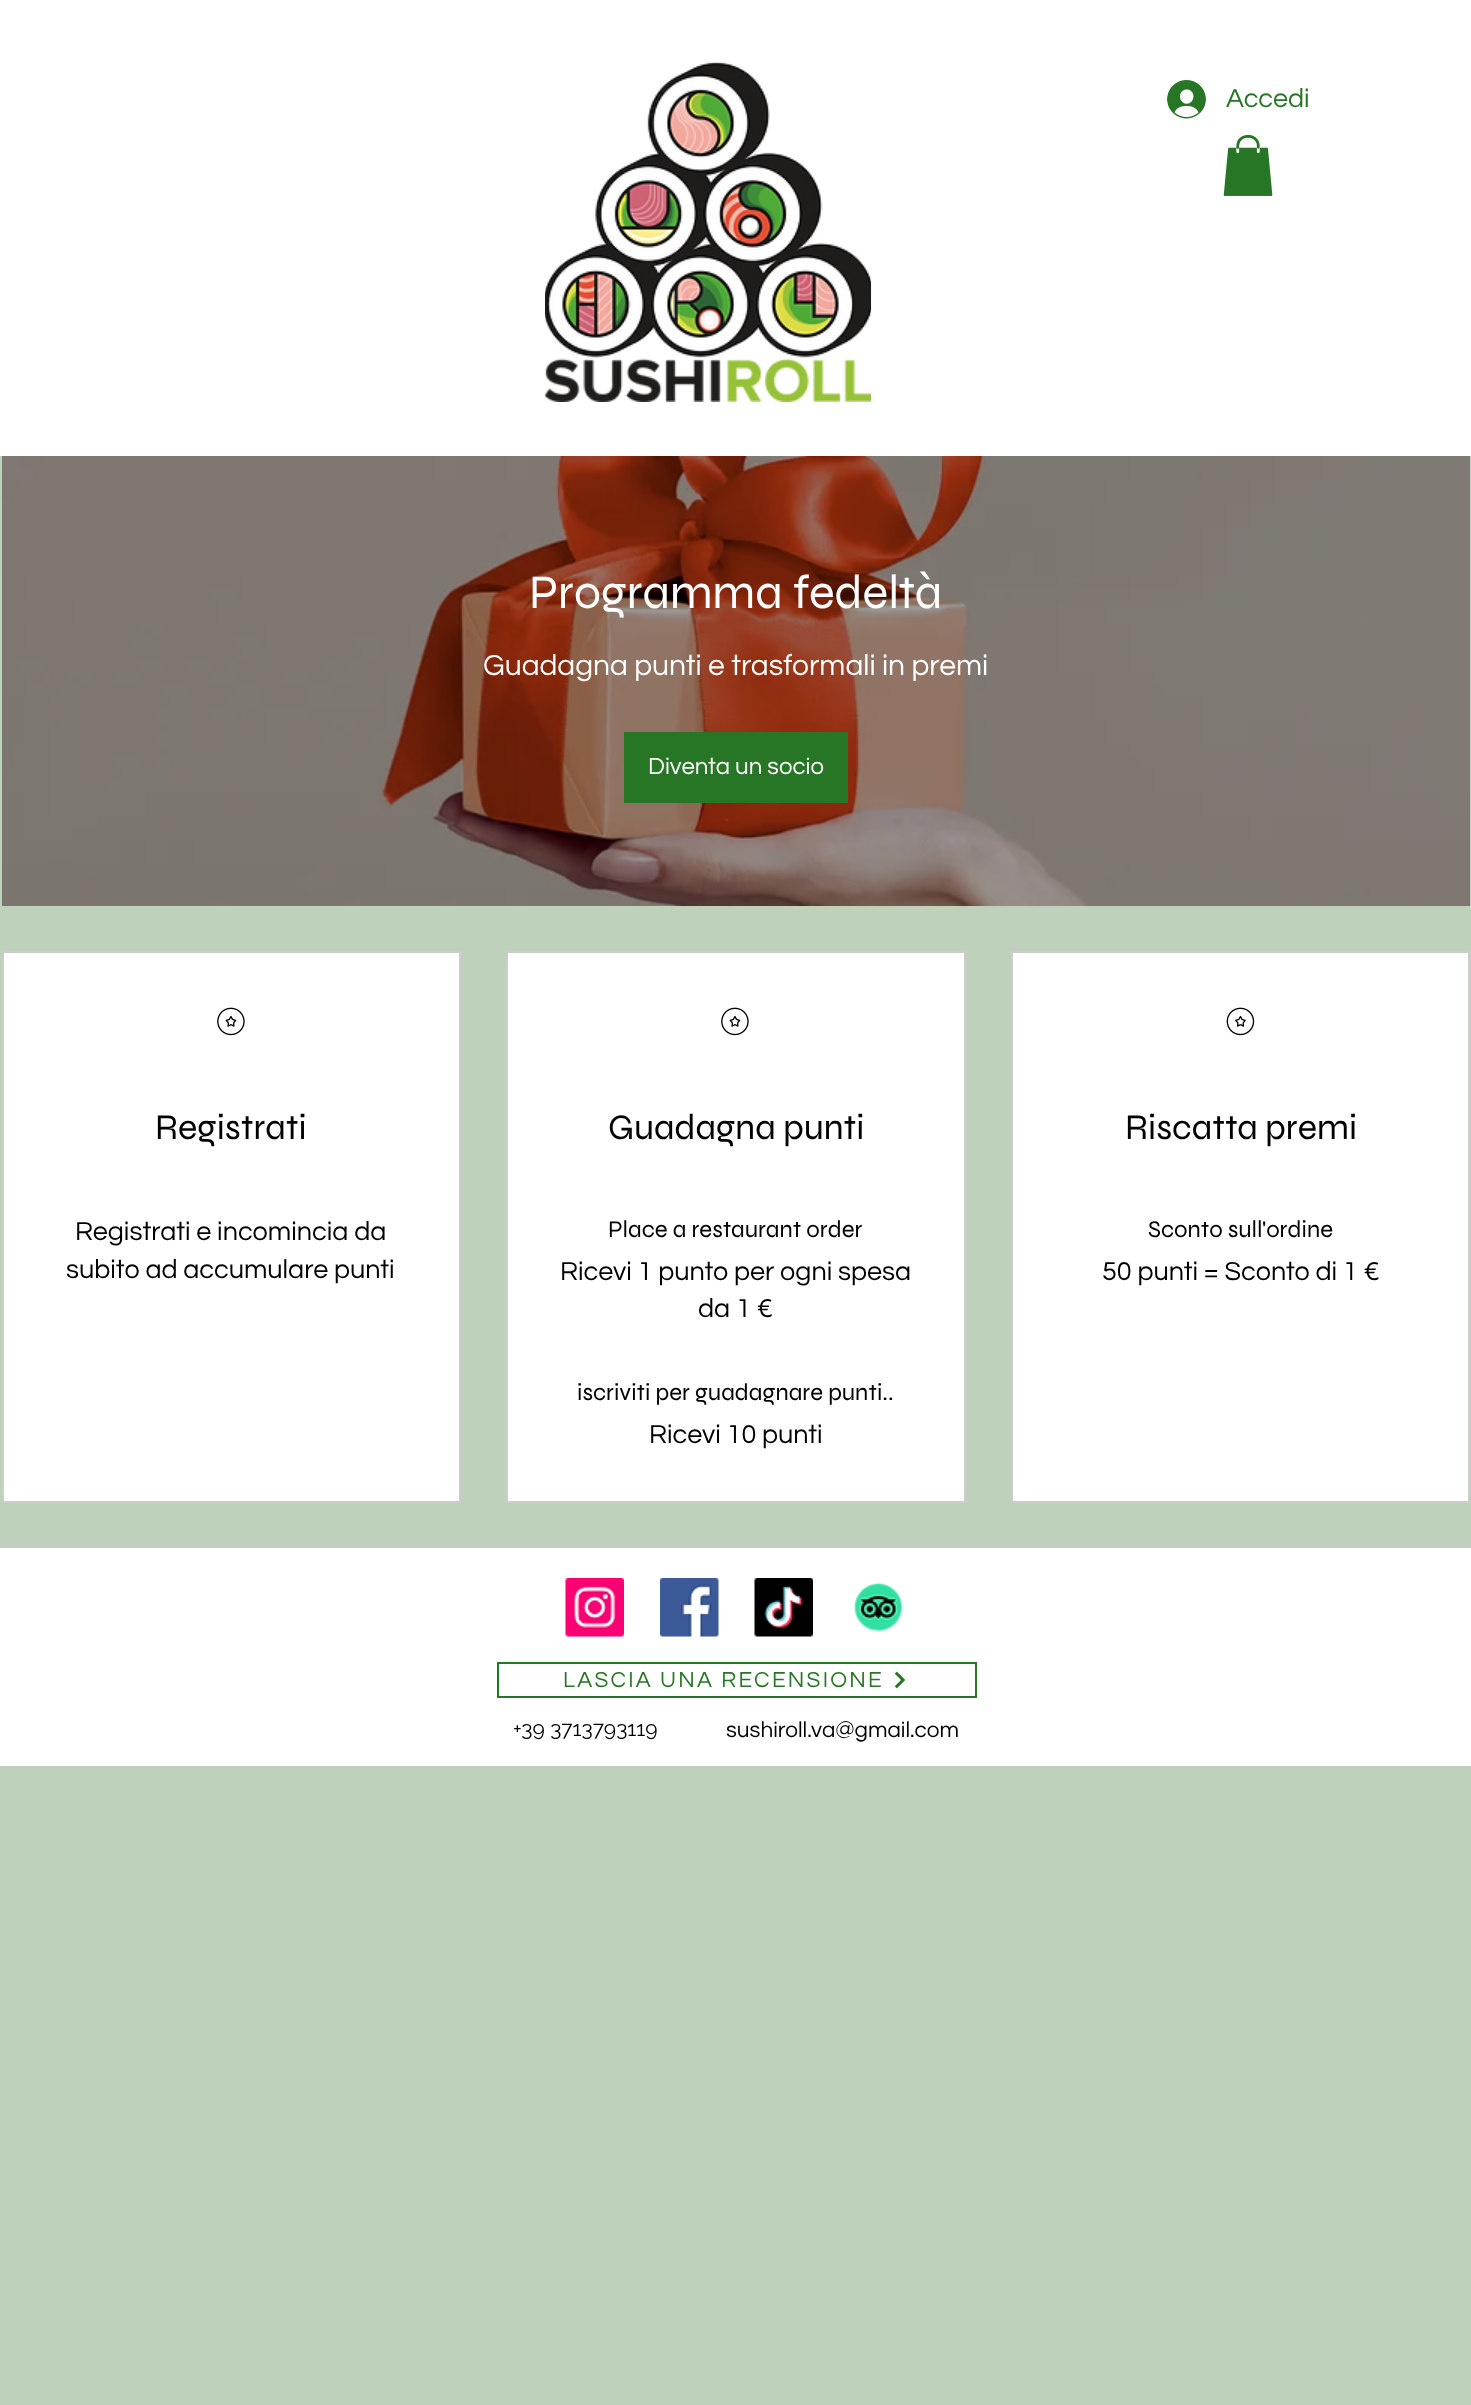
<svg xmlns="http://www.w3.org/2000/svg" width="1471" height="2405">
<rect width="100%" height="100%" fill="#bdd1bb"/>
<rect width="1471" height="456" fill="#fff"/>
<image x="545" y="62" width="327" height="340" href="media/1.png"/>
<image x="1167" y="80" width="39" height="39" href="media/2.png"/>
<text x="1226" y="107" style="font-family:Questrial;font-size:27px;fill:#277626">Accedi</text>
<image x="1223" y="135" width="50" height="61" href="media/3.png"/>
<rect x="2" y="456" width="1468" height="450" fill="#000"/>
<image x="2" y="456" width="1468" height="450" href="media/4.png"/>
<text x="529" y="608" style="font-family:Syne;font-size:48px;fill:#fff">Programma fedeltà</text>
<text x="483" y="675" style="font-family:Questrial;font-size:30px;fill:#fff">Guadagna punti e trasformali in premi</text>
<rect x="624" y="732" width="224" height="71" fill="#277626"/>
<text x="648" y="774" style="font-family:Questrial;font-size:24px;fill:#fff">Diventa un socio</text>
<rect x="3" y="952" width="457" height="550" fill="#fff" stroke="#ccc" stroke-width="2"/>
<image x="217" y="1007" width="28" height="29" href="media/5.png"/>
<text x="155" y="1139" style="font-family:Syne;font-size:36px;fill:#000">Registrati</text>
<text x="75" y="1240" style="font-family:Questrial;font-size:27px;fill:#000">Registrati e incomincia da</text>
<text x="66" y="1278" style="font-family:Questrial;font-size:27px;fill:#000">subito ad accumulare punti</text>
<rect x="507" y="952" width="458" height="550" fill="#fff" stroke="#ccc" stroke-width="2"/>
<image x="721" y="1007" width="28" height="29" href="media/5.png"/>
<text x="608" y="1139" style="font-family:Syne;font-size:36px;fill:#000">Guadagna punti</text>
<text x="608" y="1237" style="font-family:Syne;font-size:24px;fill:#000">Place a restaurant order</text>
<text x="560" y="1280" style="font-family:Questrial;font-size:27px;fill:#000">Ricevi 1 punto per ogni spesa</text>
<text x="698" y="1317" style="font-family:Questrial;font-size:27px;fill:#000">da 1 €</text>
<text x="577" y="1400" style="font-family:Syne;font-size:24px;fill:#000">iscriviti per guadagnare punti..</text>
<text x="649" y="1443" style="font-family:Questrial;font-size:27px;fill:#000">Ricevi 10 punti</text>
<rect x="1012" y="952" width="457" height="550" fill="#fff" stroke="#ccc" stroke-width="2"/>
<image x="1226" y="1007" width="29" height="29" href="media/6.png"/>
<text x="1125" y="1139" style="font-family:Syne;font-size:36px;fill:#000">Riscatta premi</text>
<text x="1148" y="1237" style="font-family:Syne;font-size:24px;fill:#000">Sconto sull'ordine</text>
<text x="1102" y="1280" style="font-family:Questrial;font-size:27px;fill:#000">50 punti = Sconto di 1 €</text>
<rect y="1548" width="1471" height="218" fill="#fff"/>
<image x="565" y="1578" width="59" height="59" href="media/7.png"/>
<image x="660" y="1578" width="59" height="59" href="media/8.png"/>
<image x="754" y="1578" width="59" height="59" href="media/9.png"/>
<image x="853" y="1582" width="51" height="50" href="media/10.png"/>
<rect x="498" y="1663" width="478" height="34" fill="none" stroke="#277626" stroke-width="2"/>
<text x="563" y="1687" style="font-family:Questrial;font-size:22.5px;letter-spacing:2.25px;fill:#277626">LASCIA UNA RECENSIONE</text>
<image x="895" y="1671" width="10" height="18" href="media/11.png"/>
<text x="513" y="1736" style="font-family:Raleway;font-size:21px;fill:#000">+39 3713793119</text>
<text x="726" y="1737" style="font-family:Questrial;font-size:22.5px;fill:#000">sushiroll.va@gmail.com</text>
</svg>
